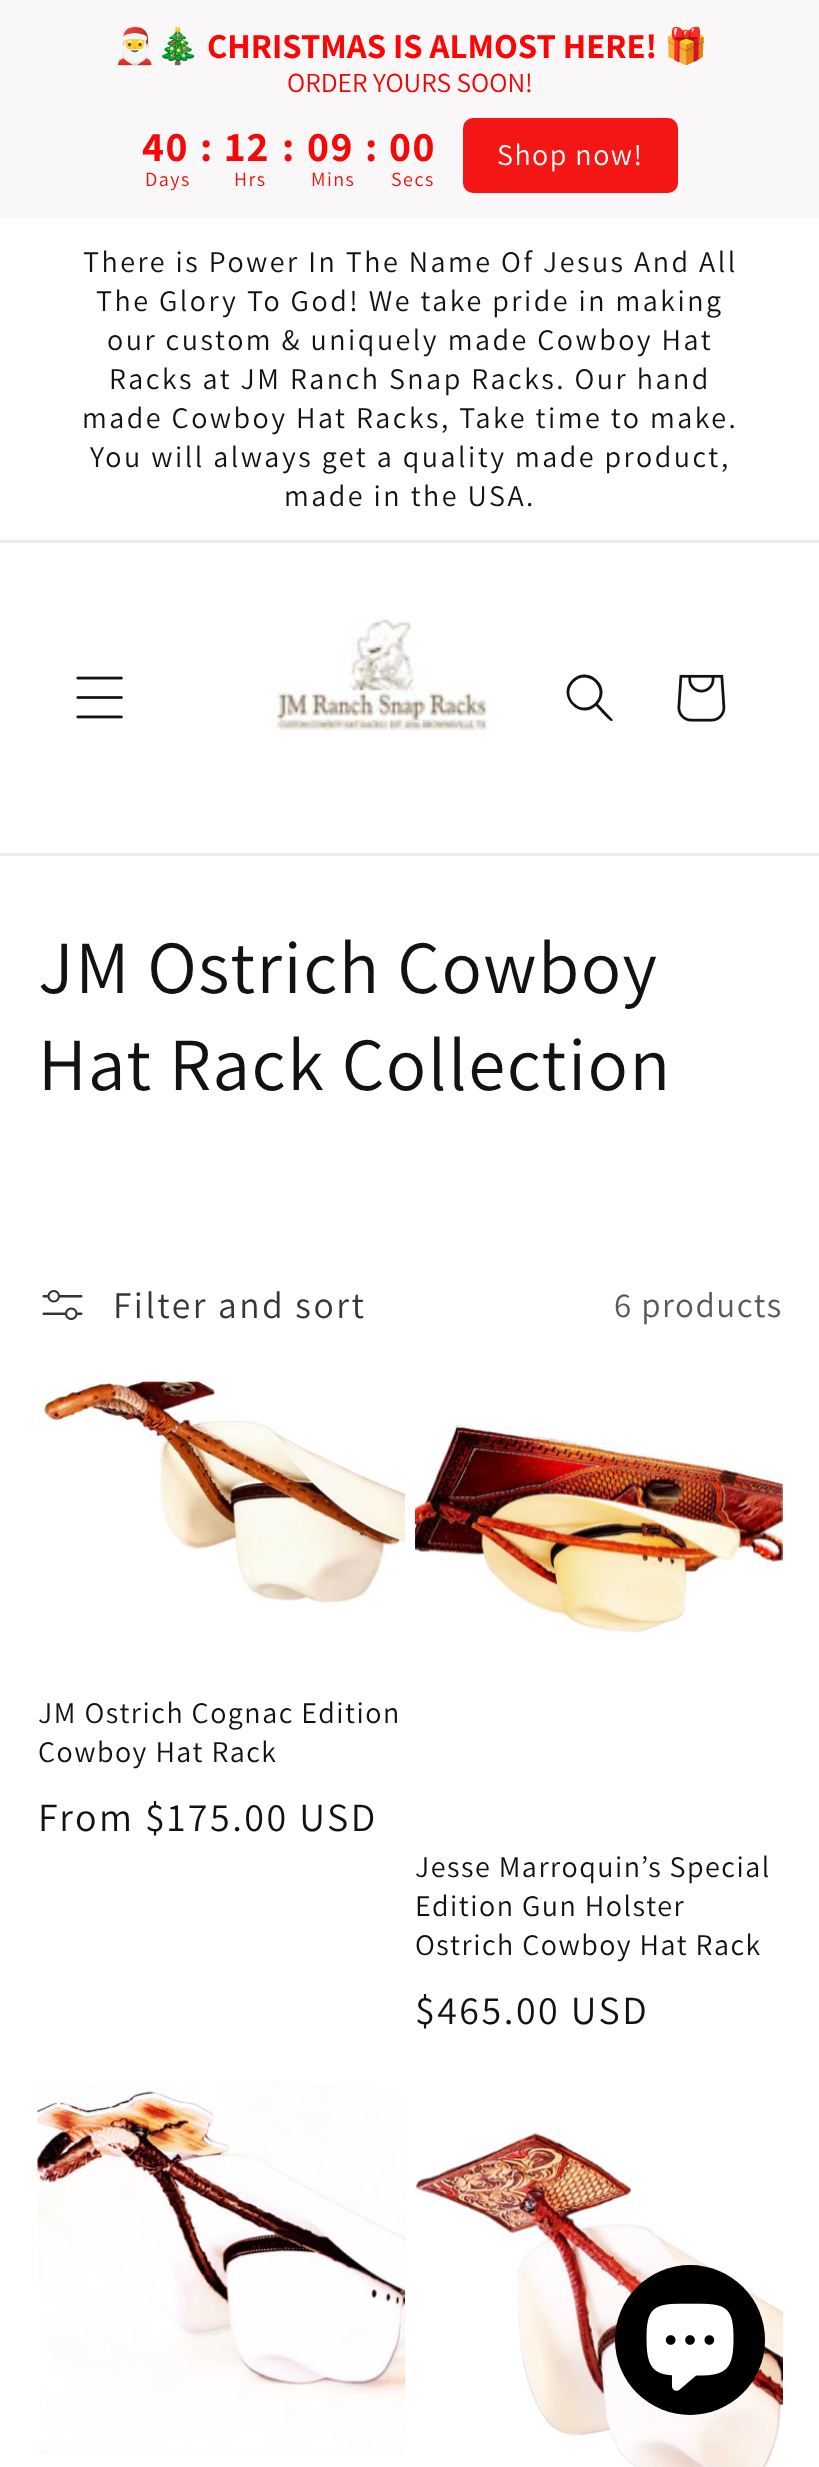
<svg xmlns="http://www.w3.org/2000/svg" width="819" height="2467">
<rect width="100%" height="100%" fill="#fff"/>
<rect width="819" height="218" fill="#f9f7f7"/>
<text x="113" y="58" style="font-family:Noto Color Emoji;font-size:35px;font-weight:bold;fill:#fd0505">🎅🎄</text>
<text x="207" y="58" style="font-family:Assistant;font-size:35px;font-weight:bold;fill:#fd0505">CHRISTMAS IS ALMOST HERE!</text>
<text x="664" y="58" style="font-family:Noto Color Emoji;font-size:35px;font-weight:bold;fill:#fd0505">🎁</text>
<text x="287" y="92" style="font-family:Assistant;font-size:27.5px;fill:#f50303">ORDER YOURS SOON!</text>
<text x="142" y="161" style="font-family:Assistant;font-size:42px;font-weight:bold;letter-spacing:1.5px;fill:#f30909">40</text>
<text x="200" y="161" style="font-family:Assistant;font-size:42px;font-weight:bold;letter-spacing:1.5px;fill:#f30909">:</text>
<text x="225" y="161" style="font-family:Assistant;font-size:42px;font-weight:bold;letter-spacing:1.5px;fill:#f30909">12</text>
<text x="282" y="161" style="font-family:Assistant;font-size:42px;font-weight:bold;letter-spacing:1.5px;fill:#f30909">:</text>
<text x="307" y="161" style="font-family:Assistant;font-size:42px;font-weight:bold;letter-spacing:1.5px;fill:#f30909">09</text>
<text x="365" y="161" style="font-family:Assistant;font-size:42px;font-weight:bold;letter-spacing:1.5px;fill:#f30909">:</text>
<text x="389" y="161" style="font-family:Assistant;font-size:42px;font-weight:bold;letter-spacing:1.5px;fill:#f30909">00</text>
<text x="145" y="186" style="font-family:Assistant;font-size:20px;letter-spacing:1.5px;fill:#f40f0f">Days</text>
<text x="234" y="186" style="font-family:Assistant;font-size:20px;letter-spacing:1.5px;fill:#f40f0f">Hrs</text>
<text x="311" y="186" style="font-family:Assistant;font-size:20px;letter-spacing:1.5px;fill:#f40f0f">Mins</text>
<text x="391" y="186" style="font-family:Assistant;font-size:20px;letter-spacing:1.5px;fill:#f40f0f">Secs</text>
<rect x="463" y="118" width="215" height="75" rx="10" fill="#f41515"/>
<text x="497" y="165" style="font-family:Assistant;font-size:30px;letter-spacing:1.5px;fill:#fff">Shop now!</text>
<rect y="540" width="819" height="3" fill="#ececec"/>
<text x="83" y="272" style="font-family:Assistant;font-size:30px;letter-spacing:2.5px;fill:#121212">There is Power In The Name Of Jesus And All</text>
<text x="96" y="311" style="font-family:Assistant;font-size:30px;letter-spacing:2.5px;fill:#121212">The Glory To God! We take pride in making</text>
<text x="107" y="350" style="font-family:Assistant;font-size:30px;letter-spacing:2.5px;fill:#121212">our custom &amp; uniquely made Cowboy Hat</text>
<text x="109" y="389" style="font-family:Assistant;font-size:30px;letter-spacing:2.5px;fill:#121212">Racks at JM Ranch Snap Racks. Our hand</text>
<text x="82" y="428" style="font-family:Assistant;font-size:30px;letter-spacing:2.5px;fill:#121212">made Cowboy Hat Racks, Take time to make.</text>
<text x="90" y="467" style="font-family:Assistant;font-size:30px;letter-spacing:2.5px;fill:#121212">You will always get a quality made product,</text>
<text x="284" y="506" style="font-family:Assistant;font-size:30px;letter-spacing:2.5px;fill:#121212">made in the USA.</text>
<rect y="853" width="819" height="3" fill="#ececec"/>
<image x="76" y="676" width="47" height="43" href="media/1.png"/>
<image x="270" y="616" width="220" height="121" href="media/2.png"/>
<path d="M595 703c-14 14-35-7-21-21c14-14 35 7 21 21zm1 3c-17 15-40-11-24-26c16-16 41 7 26 24l15 16l-1 1c-2 1-14-13-16-15z" fill="#121212" fill-rule="evenodd"/>
<image x="677" y="674" width="49" height="48" href="media/3.png"/>
<text x="38" y="993" style="font-family:Assistant;font-size:75px;letter-spacing:1.5px;fill:#121212">JM Ostrich Cowboy</text>
<text x="38" y="1090" style="font-family:Assistant;font-size:75px;letter-spacing:1.5px;fill:#121212">Hat Rack Collection</text>
<image x="42" y="1290" width="41" height="30" href="media/4.png"/>
<text x="113" y="1318" style="font-family:Assistant;font-size:37.5px;letter-spacing:2.5px;fill:#363636">Filter and sort</text>
<text x="614" y="1317" style="font-family:Assistant;font-size:35px;letter-spacing:1.5px;fill:#595959">6 products</text>
<image x="37" y="1380" width="368" height="280" href="media/5.png"/>
<text x="38" y="1723" style="font-family:Assistant;font-size:30px;letter-spacing:1.5px;fill:#121212">JM Ostrich Cognac Edition</text>
<text x="38" y="1762" style="font-family:Assistant;font-size:30px;letter-spacing:1.5px;fill:#121212">Cowboy Hat Rack</text>
<text x="38" y="1831" style="font-family:Assistant;font-size:40px;letter-spacing:2.5px;fill:#121212">From $175.00 USD</text>
<image x="415" y="1380" width="368" height="435" href="media/6.png"/>
<text x="415" y="1877" style="font-family:Assistant;font-size:30px;letter-spacing:1.5px;fill:#121212">Jesse Marroquin’s Special</text>
<text x="415" y="1916" style="font-family:Assistant;font-size:30px;letter-spacing:1.5px;fill:#121212">Edition Gun Holster</text>
<text x="415" y="1955" style="font-family:Assistant;font-size:30px;letter-spacing:1.5px;fill:#121212">Ostrich Cowboy Hat Rack</text>
<text x="415" y="2024" style="font-family:Assistant;font-size:40px;letter-spacing:2.5px;fill:#121212">$465.00 USD</text>
<rect x="38" y="2452" width="367" height="1" fill="#f3f3f3"/>
<image x="37" y="2083" width="368" height="370" href="media/7.png"/>
<image x="415" y="2083" width="368" height="384" href="media/8.png"/>
<circle cx="690" cy="2340" r="75" fill="#000"/>
<image x="646" y="2303" width="88" height="88" href="media/9.png"/>
</svg>
